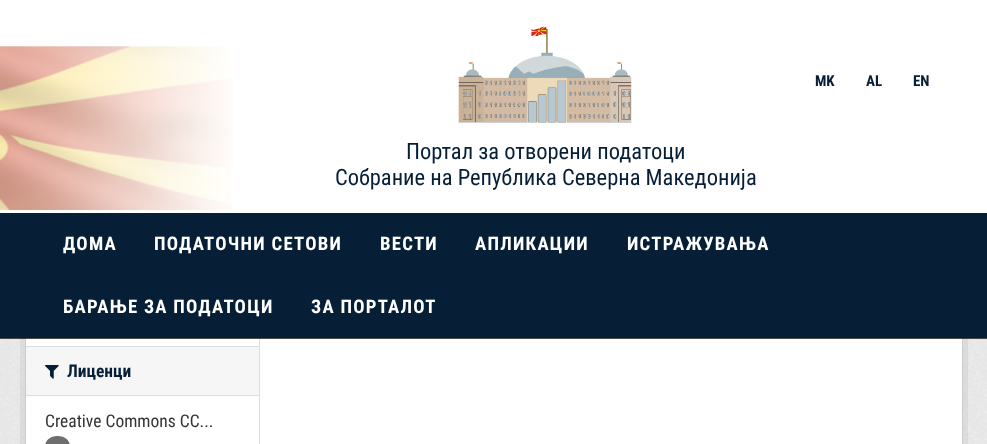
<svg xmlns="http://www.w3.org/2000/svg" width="987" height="444">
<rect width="100%" height="100%" fill="#eee"/>
<image x="0" y="338" width="987" height="106" href="media/3.png"/>
<rect x="22.5" y="-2.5" width="943" height="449" fill="none" stroke="#0000000d" stroke-width="5"/>
<rect x="26" y="338" width="936" height="106" fill="#fff"/>
<rect x="25.5" y="-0.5" width="937" height="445" fill="none" stroke="#ccc"/>
<rect x="259" y="338" width="1" height="106" fill="#ddd"/>
<rect y="338" width="987" height="1" fill="#000000b3"/>
<rect width="987" height="213" fill="#fff"/>
<text x="815" y="86" style="font-family:Roboto Condensed;font-size:15px;font-weight:bold;fill:#061f37">MK</text>
<text x="866" y="86" style="font-family:Roboto Condensed;font-size:15px;font-weight:bold;fill:#061f37">AL</text>
<text x="913" y="86" style="font-family:Roboto Condensed;font-size:15px;font-weight:bold;fill:#061f37">EN</text>
<image x="0" y="46" width="233" height="164" href="media/1.png"/>
<image x="458" y="26" width="174" height="97" href="media/2.png"/>
<text x="406" y="159" style="font-family:Roboto Condensed;font-size:22.5px;fill:#061f37">Портал за отворени податоци</text>
<text x="335" y="185" style="font-family:Roboto Condensed;font-size:22.5px;fill:#061f37">Собрание на Република Северна Македонија</text>
<rect y="213" width="987" height="125" fill="#061f37"/>
<text x="63" y="250" style="font-family:Roboto Condensed;font-size:18.75px;font-weight:bold;letter-spacing:1.25px;fill:#fff">ДОМА</text>
<text x="154" y="250" style="font-family:Roboto Condensed;font-size:18.75px;font-weight:bold;letter-spacing:1.25px;fill:#fff">ПОДАТОЧНИ СЕТОВИ</text>
<text x="380" y="250" style="font-family:Roboto Condensed;font-size:18.75px;font-weight:bold;letter-spacing:1.25px;fill:#fff">ВЕСТИ</text>
<text x="475" y="250" style="font-family:Roboto Condensed;font-size:18.75px;font-weight:bold;letter-spacing:1.25px;fill:#fff">АПЛИКАЦИИ</text>
<text x="627" y="250" style="font-family:Roboto Condensed;font-size:18.75px;font-weight:bold;letter-spacing:1.25px;fill:#fff">ИСТРАЖУВАЊА</text>
<text x="63" y="313" style="font-family:Roboto Condensed;font-size:18.75px;font-weight:bold;letter-spacing:1.25px;fill:#fff">БАРАЊЕ ЗА ПОДАТОЦИ</text>
<text x="311" y="313" style="font-family:Roboto Condensed;font-size:18.75px;font-weight:bold;letter-spacing:1.25px;fill:#fff">ЗА ПОРТАЛОТ</text>
<rect x="26" y="347" width="233" height="48" fill="#f6f6f6"/>
<rect x="26" y="346" width="233" height="1" fill="#ddd"/>
<rect x="26" y="395" width="233" height="1" fill="#ddd"/>
<image x="45" y="365" width="14" height="14" href="media/4.png"/>
<text x="67" y="377" style="font-family:Roboto Condensed;font-size:17.5px;font-weight:bold;fill:#061f37">Лиценци</text>
<text x="45" y="427" style="font-family:Roboto Condensed;font-size:17.5px;fill:#333">Creative Commons CC...</text>
<rect x="45" y="436" width="25" height="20" rx="11.5" fill="#6e6e6e"/>
</svg>
